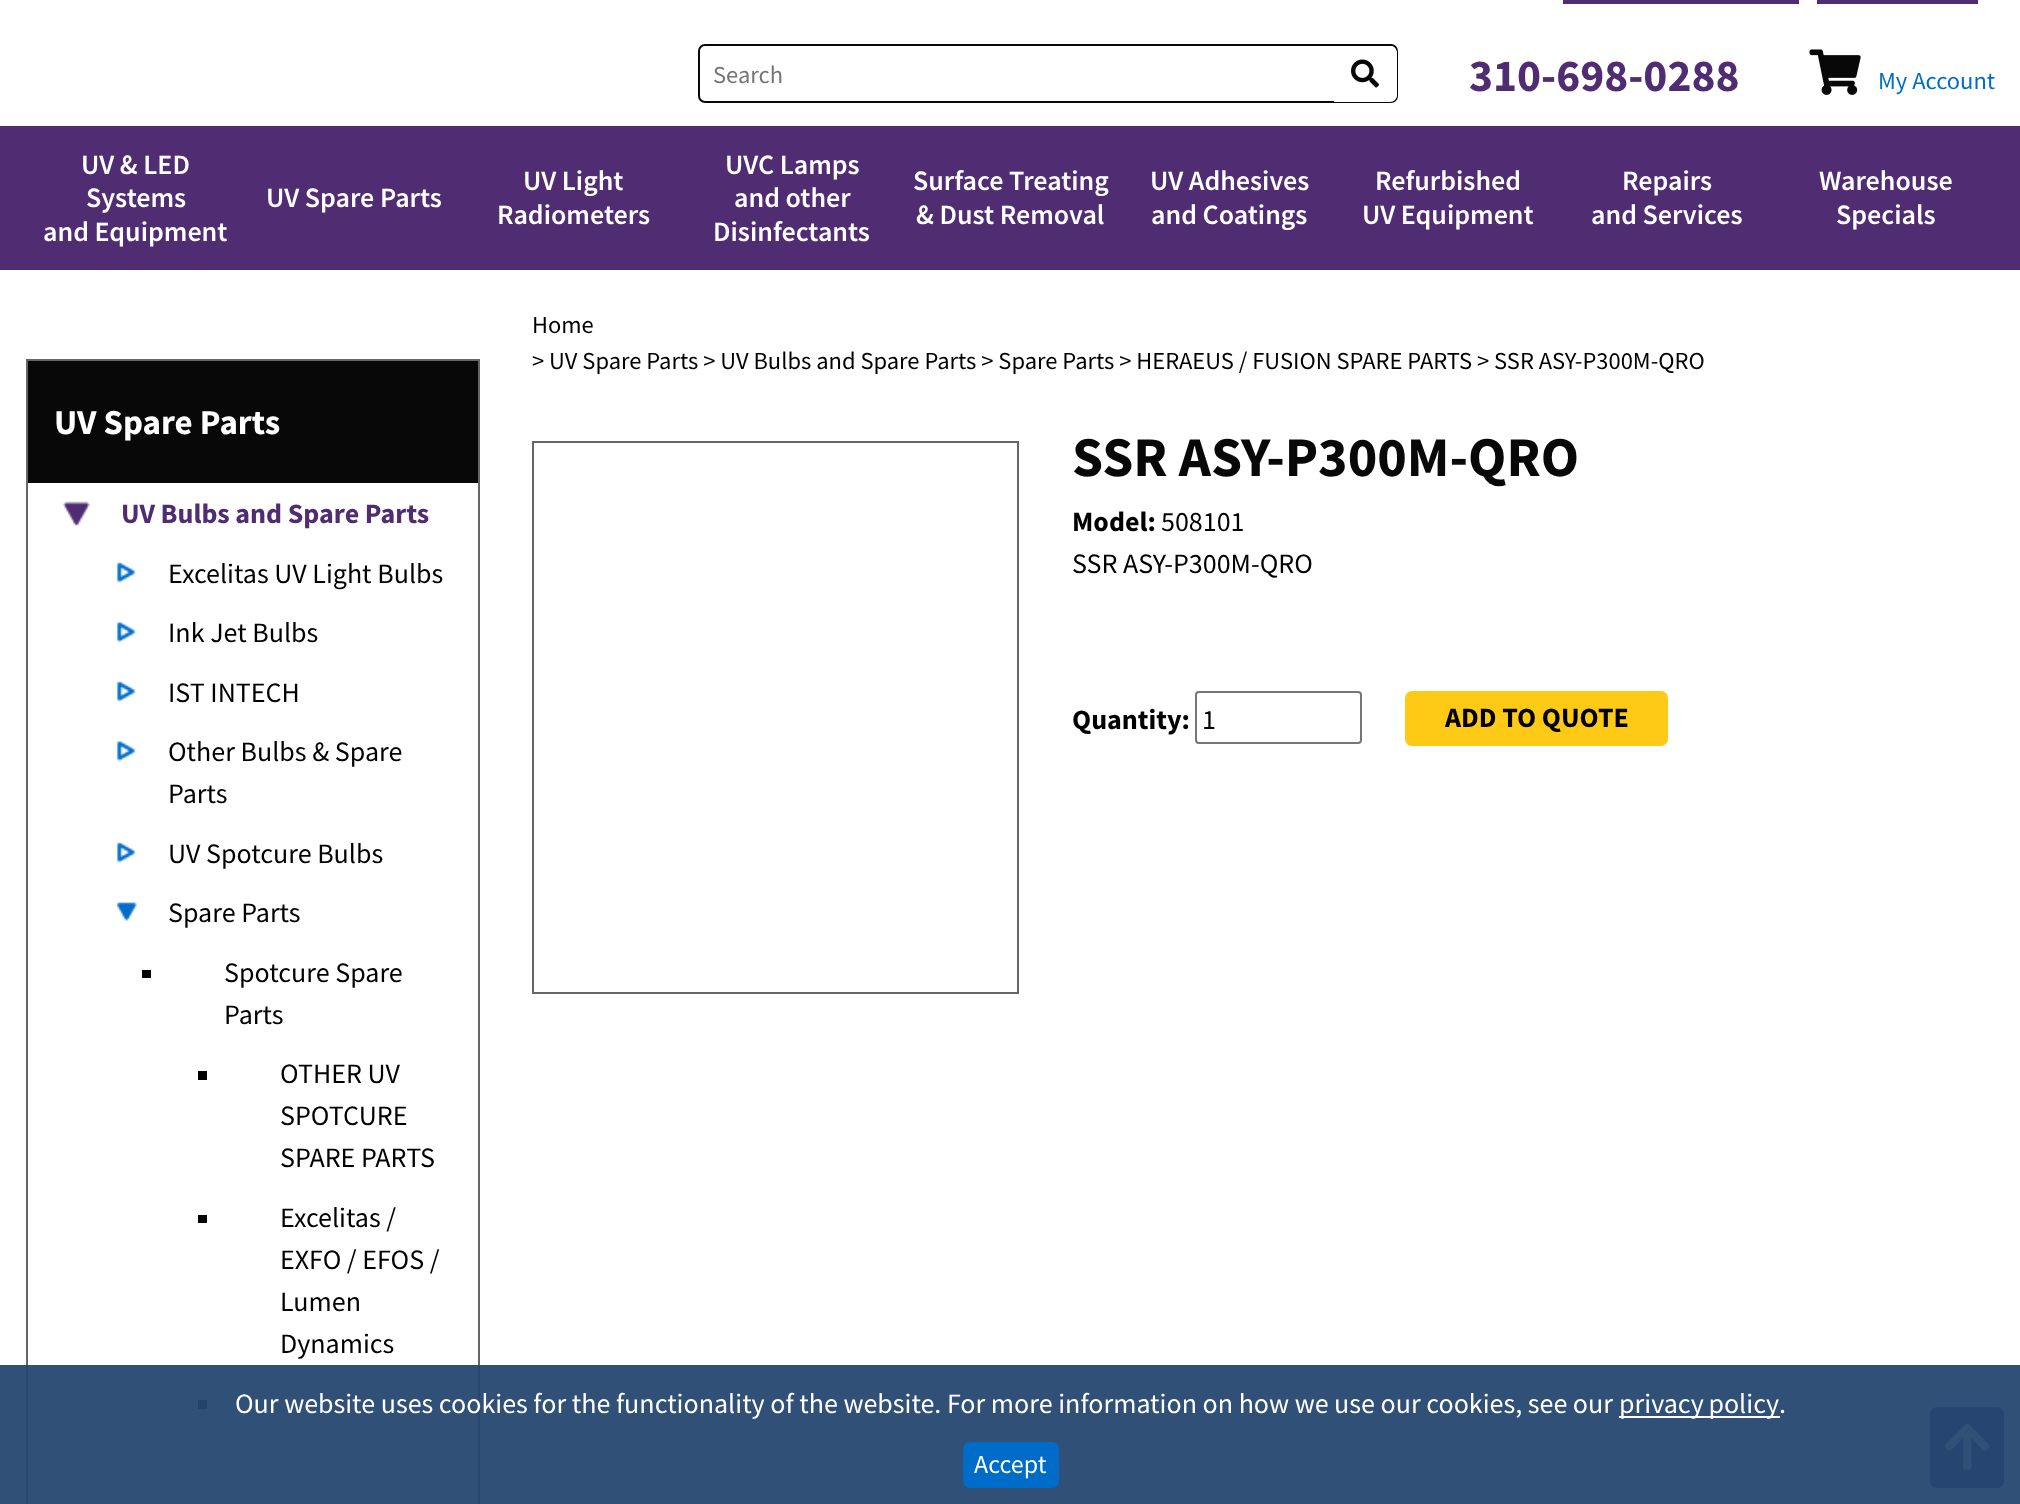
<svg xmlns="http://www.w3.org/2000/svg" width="2020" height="1504">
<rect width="100%" height="100%" fill="#fff"/>
<rect x="1565" y="-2" width="232" height="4" fill="none" stroke="#502c72" stroke-width="4"/>
<rect x="1819" y="-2" width="157" height="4" fill="none" stroke="#502c72" stroke-width="4"/>
<rect x="699" y="45" width="698" height="57" rx="6" fill="none" stroke="#080808" stroke-width="2"/>
<text x="713" y="83" style="font-family:Source Sans Pro;font-size:24.5px;fill:#757575">Search</text>
<path d="M1334 46h56c4 0 7 3 7 7v42c0 4-3 7-7 7h-56z" fill="#fff"/>
<image x="1351" y="59" width="28" height="29" href="media/1.png"/>
<text x="1469" y="91" style="font-family:Source Sans Pro;font-size:45.5px;font-weight:bold;fill:#502c72">310-698-0288</text>
<image x="1809" y="49" width="52" height="46" href="media/2.png"/>
<text x="1878" y="89" style="font-family:Source Sans Pro;font-size:24.5px;fill:#006cc9">My Account</text>
<rect y="126" width="2020" height="144" fill="#502c72"/>
<text x="81" y="174" style="font-family:Source Sans Pro;font-size:28px;font-weight:600;fill:#fff">UV &amp; LED</text>
<text x="86" y="207" style="font-family:Source Sans Pro;font-size:28px;font-weight:600;fill:#fff">Systems</text>
<text x="43" y="241" style="font-family:Source Sans Pro;font-size:28px;font-weight:600;fill:#fff">and Equipment</text>
<text x="266" y="207" style="font-family:Source Sans Pro;font-size:28px;font-weight:600;fill:#fff">UV Spare Parts</text>
<text x="523" y="190" style="font-family:Source Sans Pro;font-size:28px;font-weight:600;fill:#fff">UV Light</text>
<text x="497" y="224" style="font-family:Source Sans Pro;font-size:28px;font-weight:600;fill:#fff">Radiometers</text>
<text x="725" y="174" style="font-family:Source Sans Pro;font-size:28px;font-weight:600;fill:#fff">UVC Lamps</text>
<text x="734" y="207" style="font-family:Source Sans Pro;font-size:28px;font-weight:600;fill:#fff">and other</text>
<text x="713" y="241" style="font-family:Source Sans Pro;font-size:28px;font-weight:600;fill:#fff">Disinfectants</text>
<text x="913" y="190" style="font-family:Source Sans Pro;font-size:28px;font-weight:600;fill:#fff">Surface Treating</text>
<text x="916" y="224" style="font-family:Source Sans Pro;font-size:28px;font-weight:600;fill:#fff">&amp; Dust Removal</text>
<text x="1150" y="190" style="font-family:Source Sans Pro;font-size:28px;font-weight:600;fill:#fff">UV Adhesives</text>
<text x="1151" y="224" style="font-family:Source Sans Pro;font-size:28px;font-weight:600;fill:#fff">and Coatings</text>
<text x="1375" y="190" style="font-family:Source Sans Pro;font-size:28px;font-weight:600;fill:#fff">Refurbished</text>
<text x="1362" y="224" style="font-family:Source Sans Pro;font-size:28px;font-weight:600;fill:#fff">UV Equipment</text>
<text x="1622" y="190" style="font-family:Source Sans Pro;font-size:28px;font-weight:600;fill:#fff">Repairs</text>
<text x="1591" y="224" style="font-family:Source Sans Pro;font-size:28px;font-weight:600;fill:#fff">and Services</text>
<text x="1819" y="190" style="font-family:Source Sans Pro;font-size:28px;font-weight:600;fill:#fff">Warehouse</text>
<text x="1836" y="224" style="font-family:Source Sans Pro;font-size:28px;font-weight:600;fill:#fff">Specials</text>
<rect x="27" y="360" width="452" height="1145" fill="none" stroke="#666" stroke-width="2"/>
<rect x="28" y="361" width="450" height="122" fill="#080808"/>
<text x="54" y="434" style="font-family:Source Sans Pro;font-size:35px;font-weight:bold;fill:#fff">UV Spare Parts</text>
<image x="63" y="501" width="27" height="25" href="media/3.png"/>
<text x="121" y="523" style="font-family:Source Sans Pro;font-size:28px;font-weight:bold;fill:#502c72">UV Bulbs and Spare Parts</text>
<image x="116" y="561" width="20" height="22" href="media/4.png"/>
<text x="168" y="583" style="font-family:Source Sans Pro;font-size:28px;fill:#000">Excelitas UV Light Bulbs</text>
<image x="116" y="621" width="20" height="22" href="media/5.png"/>
<text x="168" y="642" style="font-family:Source Sans Pro;font-size:28px;fill:#000">Ink Jet Bulbs</text>
<image x="116" y="680" width="20" height="22" href="media/4.png"/>
<text x="168" y="702" style="font-family:Source Sans Pro;font-size:28px;fill:#000">IST INTECH</text>
<image x="116" y="740" width="20" height="22" href="media/5.png"/>
<text x="168" y="761" style="font-family:Source Sans Pro;font-size:28px;fill:#000">Other Bulbs &amp; Spare</text>
<text x="168" y="803" style="font-family:Source Sans Pro;font-size:28px;fill:#000">Parts</text>
<image x="116" y="841" width="20" height="22" href="media/4.png"/>
<text x="168" y="863" style="font-family:Source Sans Pro;font-size:28px;fill:#000">UV Spotcure Bulbs</text>
<image x="116" y="902" width="21" height="19" href="media/6.png"/>
<text x="168" y="922" style="font-family:Source Sans Pro;font-size:28px;fill:#000">Spare Parts</text>
<rect x="142" y="970" width="9" height="8" fill="#000"/>
<text x="224" y="982" style="font-family:Source Sans Pro;font-size:28px;fill:#000">Spotcure Spare</text>
<text x="224" y="1024" style="font-family:Source Sans Pro;font-size:28px;fill:#000">Parts</text>
<rect x="198" y="1071" width="9" height="9" fill="#000"/>
<text x="280" y="1083" style="font-family:Source Sans Pro;font-size:28px;fill:#000">OTHER UV</text>
<text x="280" y="1125" style="font-family:Source Sans Pro;font-size:28px;fill:#000">SPOTCURE</text>
<text x="280" y="1167" style="font-family:Source Sans Pro;font-size:28px;fill:#000">SPARE PARTS</text>
<rect x="198" y="1215" width="9" height="8" fill="#000"/>
<text x="280" y="1227" style="font-family:Source Sans Pro;font-size:28px;fill:#000">Excelitas /</text>
<text x="280" y="1269" style="font-family:Source Sans Pro;font-size:28px;fill:#000">EXFO / EFOS /</text>
<text x="280" y="1311" style="font-family:Source Sans Pro;font-size:28px;fill:#000">Lumen</text>
<text x="280" y="1353" style="font-family:Source Sans Pro;font-size:28px;fill:#000">Dynamics</text>
<rect x="198" y="1400" width="9" height="9" fill="#000"/>
<text x="532" y="333" style="font-family:Source Sans Pro;font-size:24.5px;fill:#000">Home</text>
<text x="532" y="369" style="font-family:Source Sans Pro;font-size:24.5px;fill:#000">&gt; UV Spare Parts &gt; UV Bulbs and Spare Parts &gt; Spare Parts &gt; HERAEUS / FUSION SPARE PARTS &gt; SSR ASY-P300M-QRO</text>
<rect x="533" y="442" width="485" height="551" fill="none" stroke="#666" stroke-width="2"/>
<text x="1072" y="476" style="font-family:Source Sans Pro;font-size:56px;font-weight:bold;fill:#080808">SSR ASY-P300M-QRO</text>
<text x="1072" y="531" style="font-family:Source Sans Pro;font-size:28px;font-weight:bold;fill:#000">Model:</text>
<text x="1161" y="531" style="font-family:Source Sans Pro;font-size:28px;fill:#000">508101</text>
<text x="1072" y="573" style="font-family:Source Sans Pro;font-size:28px;fill:#000">SSR ASY-P300M-QRO</text>
<text x="1072" y="729" style="font-family:Source Sans Pro;font-size:28px;font-weight:bold;fill:#000">Quantity:</text>
<rect x="1196" y="692" width="165" height="51" rx="3" fill="none" stroke="#767676" stroke-width="2"/>
<text x="1202" y="729" style="font-family:Source Sans Pro;font-size:28px;fill:#000">1</text>
<rect x="1406" y="692" width="261" height="53" rx="6" fill="#ffca16" stroke="#ffca16" stroke-width="2"/>
<text x="1445" y="727" style="font-family:Source Sans Pro;font-size:28px;font-weight:bold;fill:#000">ADD TO QUOTE</text>
<rect x="1930" y="1407" width="74" height="81" rx="7" fill="#502c72"/>
<image x="1944" y="1423" width="46" height="47" href="media/7.png"/>
<rect y="1365" width="2020" height="139" fill="#254771f2"/>
<text x="235" y="1413" style="font-family:Source Sans Pro;font-size:28px;fill:#fff">Our website uses cookies for the functionality of the website. For more information on how we use our cookies, see our</text>
<rect x="1619" y="1416" width="161" height="2" fill="#fff"/>
<text x="1619" y="1413" word-spacing="-1" style="font-family:Source Sans Pro;font-size:28px;fill:#fff">privacy policy</text>
<text x="1779" y="1413" style="font-family:Source Sans Pro;font-size:28px;fill:#fff">.</text>
<rect x="964" y="1443" width="94" height="44" rx="6" fill="#006cc9" stroke="#006cc9" stroke-width="2"/>
<text x="974" y="1473" style="font-family:Source Sans Pro;font-size:26px;fill:#fff">Accept</text>
</svg>
